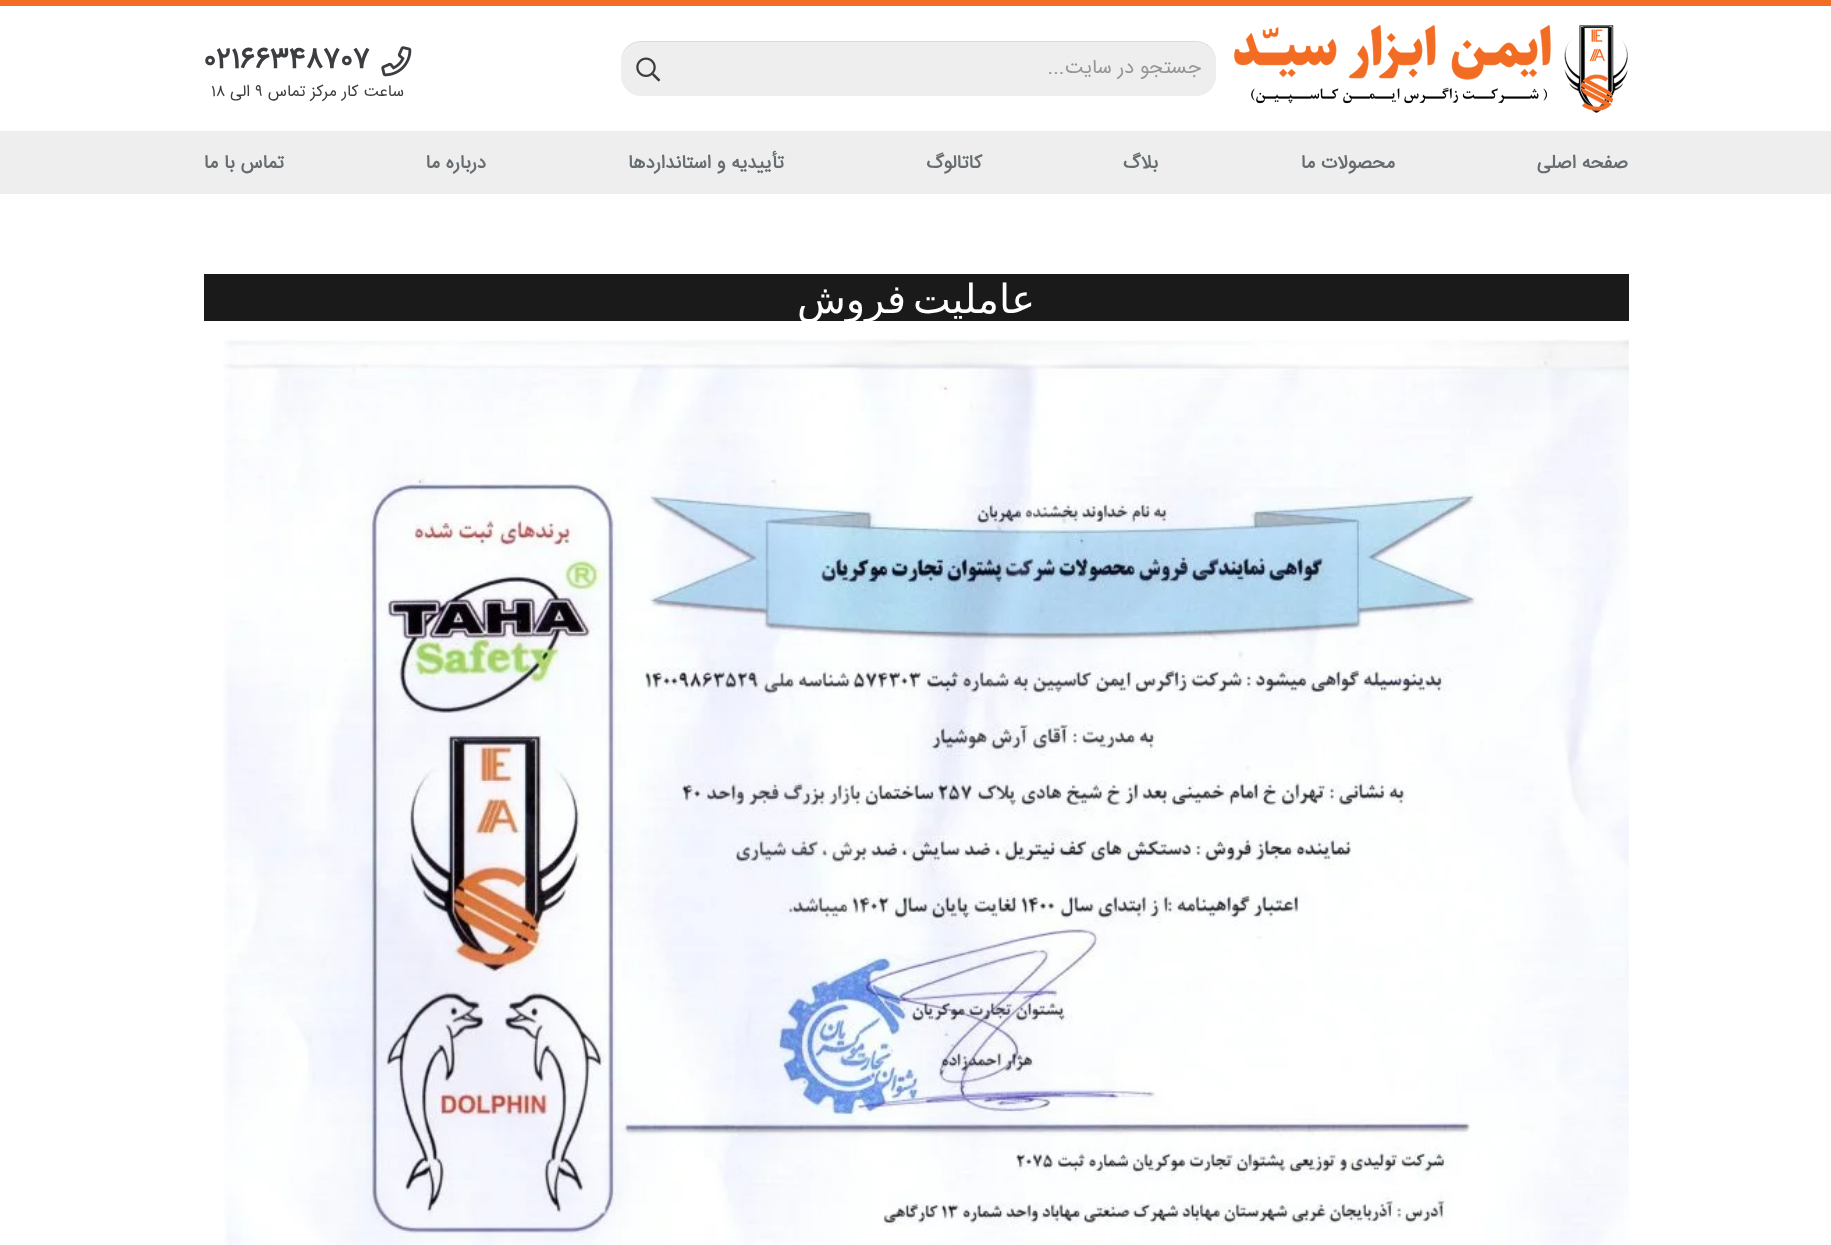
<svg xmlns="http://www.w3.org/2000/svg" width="1831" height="1245">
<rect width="100%" height="100%" fill="#fff"/>
<rect width="1831" height="6" fill="#f36c24"/>
<image x="1234" y="25" width="394" height="88" href="media/1.png"/>
<rect x="621" y="41" width="595" height="55" rx="20" fill="#eee"/>
<path d="M641 42h555c11 0 20 9 20 20v-1c0-11-9-20-20-20h-555c-11 0-20 9-20 20v1c0-11 9-20 20-20z" fill="#00000014"/>
<text x="1201" y="73" style="font-family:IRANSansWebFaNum;font-size:20px;direction:rtl;fill:#959697">جستجو در سایت...</text>
<image x="636" y="57" width="25" height="25" href="media/2.png"/>
<image x="381" y="46" width="31" height="31" href="media/3.png"/>
<text x="203" y="68" style="font-family:IRANSansWebFaNum;font-size:30px;font-weight:bold;fill:#3b3d40">02166348707</text>
<text x="404" y="96" style="font-family:IRANSansWebFaNum;font-size:16.25px;direction:rtl;fill:#3b3d40">ساعت کار مرکز تماس</text>
<text x="255" y="96" style="font-family:IRANSansWebFaNum;font-size:16.25px;fill:#3b3d40">9</text>
<text x="250" y="96" style="font-family:IRANSansWebFaNum;font-size:16.25px;direction:rtl;fill:#3b3d40">الی</text>
<text x="211" y="96" style="font-family:IRANSansWebFaNum;font-size:16.25px;fill:#3b3d40">18</text>
<rect y="131" width="1831" height="63" fill="#eee"/>
<text x="1628" y="168" style="font-family:IRANSansWebFaNum;font-size:18.75px;font-weight:bold;direction:rtl;fill:#666d70">صفحه اصلی</text>
<text x="1395" y="168" style="font-family:IRANSansWebFaNum;font-size:18.75px;font-weight:bold;direction:rtl;fill:#666d70">محصولات ما</text>
<text x="1158" y="168" style="font-family:IRANSansWebFaNum;font-size:18.75px;font-weight:bold;direction:rtl;fill:#666d70">بلاگ</text>
<text x="982" y="168" style="font-family:IRANSansWebFaNum;font-size:18.75px;font-weight:bold;direction:rtl;fill:#666d70">کاتالوگ</text>
<text x="784" y="168" style="font-family:IRANSansWebFaNum;font-size:18.75px;font-weight:bold;direction:rtl;fill:#666d70">تأییدیه و استانداردها</text>
<text x="486" y="168" style="font-family:IRANSansWebFaNum;font-size:18.75px;font-weight:bold;direction:rtl;fill:#666d70">درباره ما</text>
<text x="284" y="168" style="font-family:IRANSansWebFaNum;font-size:18.75px;font-weight:bold;direction:rtl;fill:#666d70">تماس با ما</text>
<rect x="204" y="274" width="1425" height="47" fill="#1a1a1a"/>
<text x="1035" y="313" word-spacing="-6" style="font-family:DejaVu Sans;font-size:40px;direction:rtl;fill:#fff">عاملیت فروش</text>
<image x="223" y="339" width="1406" height="906" href="media/4.png"/>
</svg>
